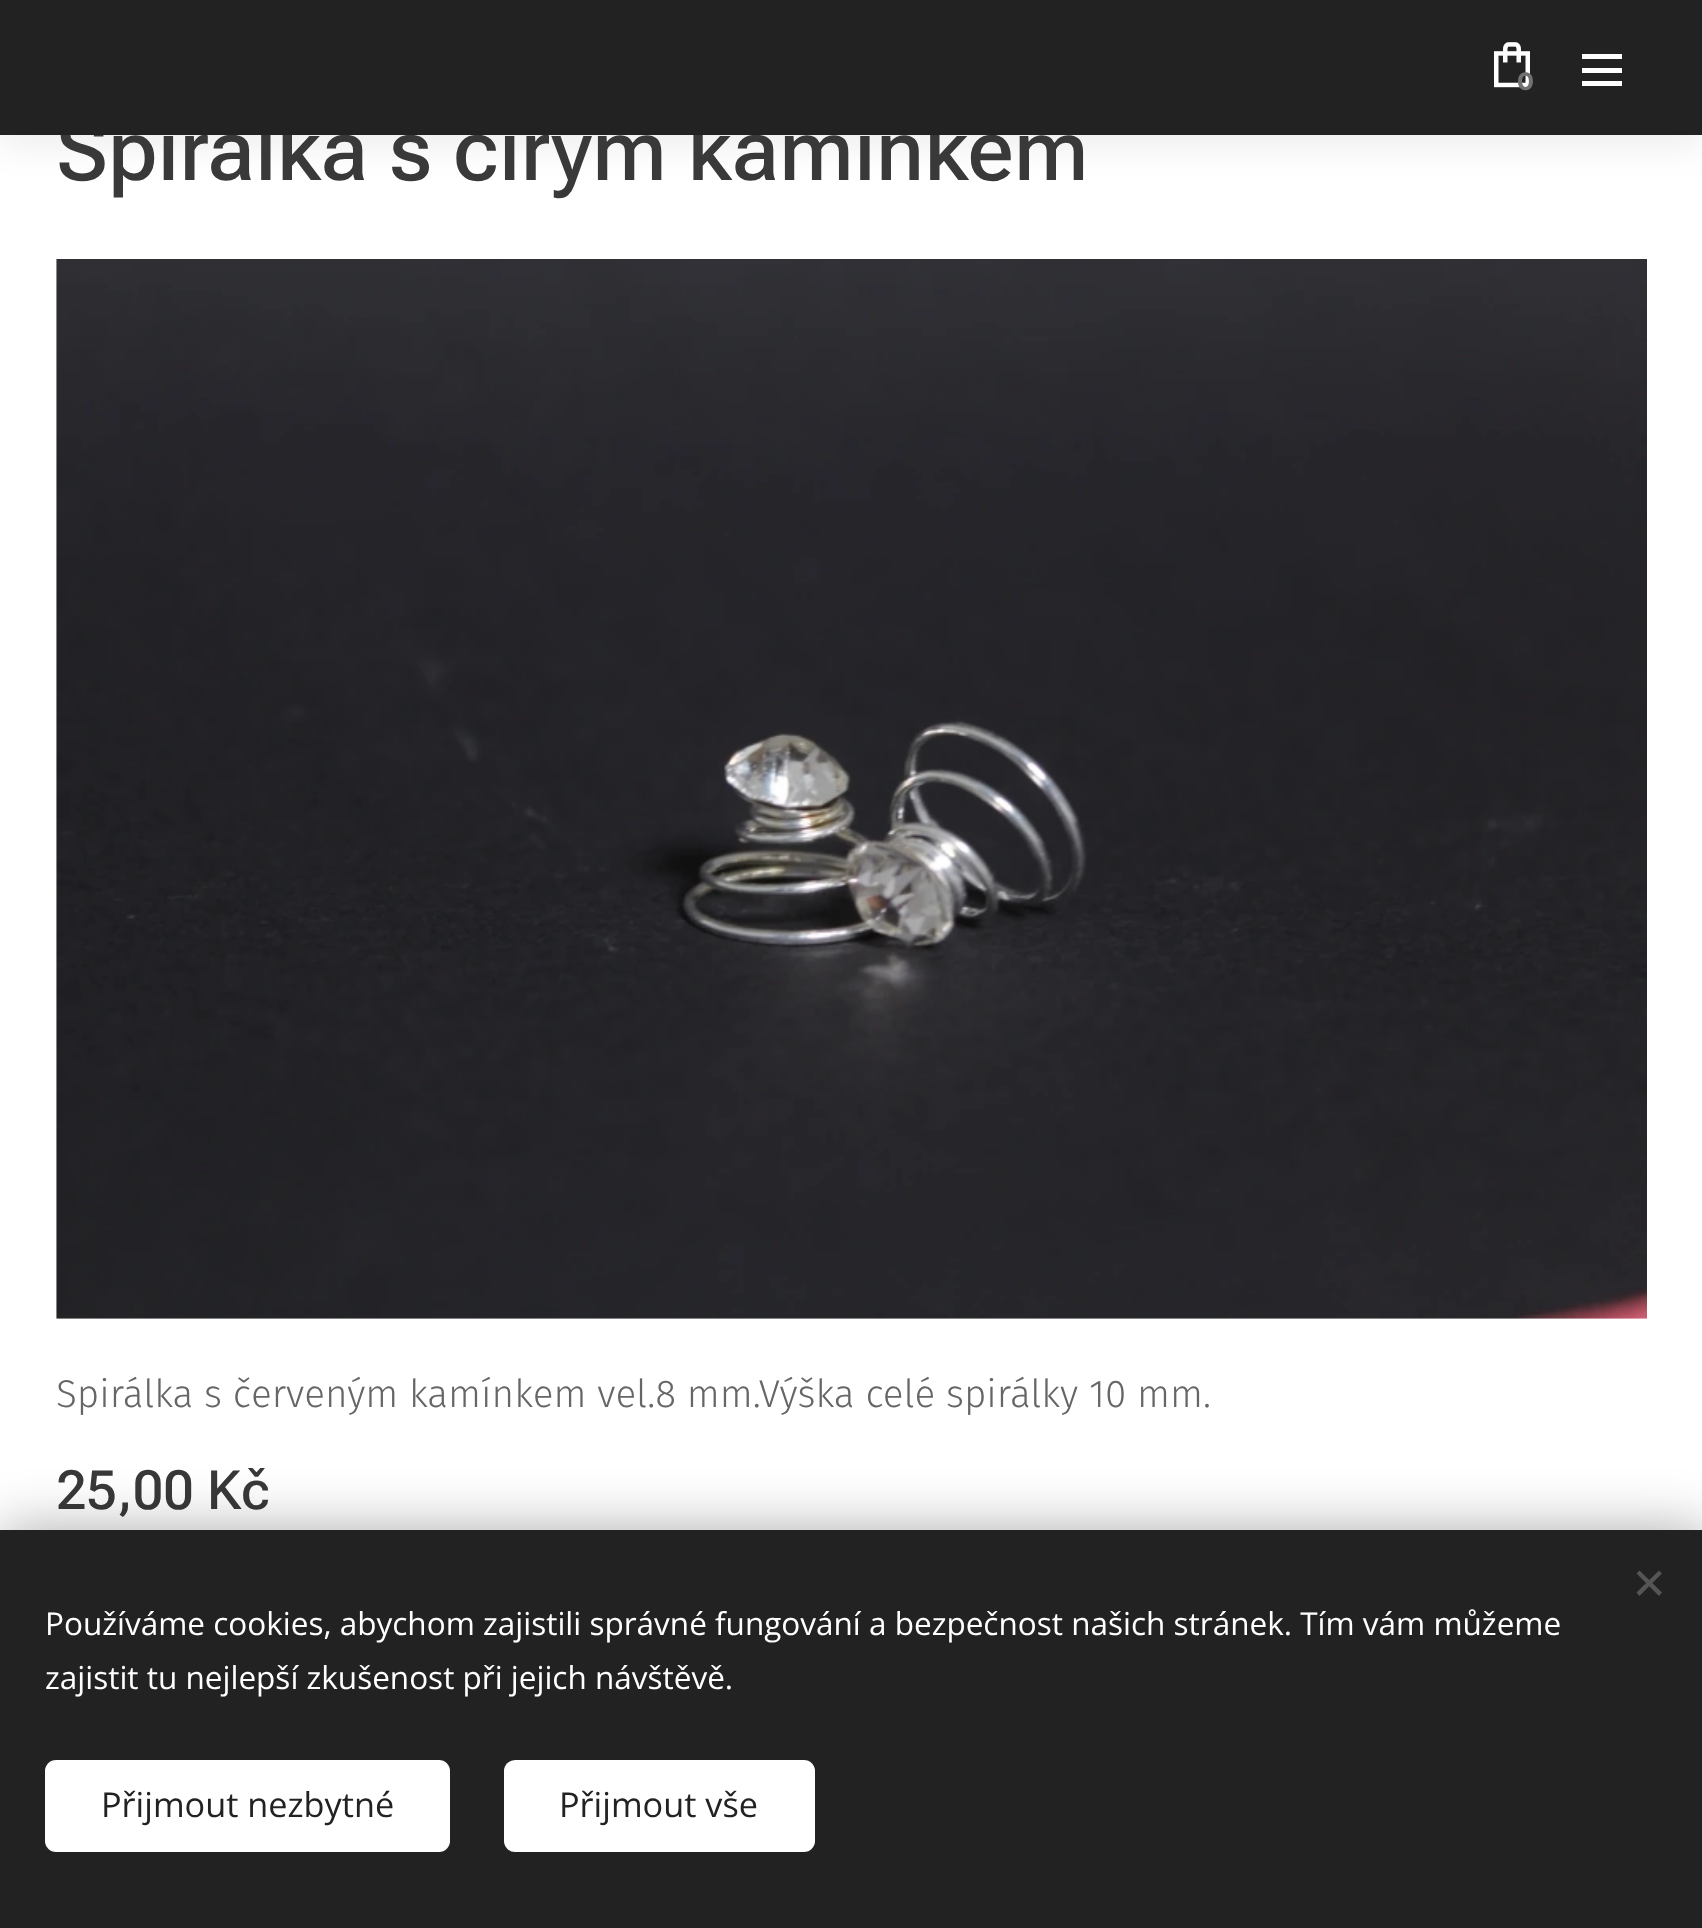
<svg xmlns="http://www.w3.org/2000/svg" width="1702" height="1928">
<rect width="100%" height="100%" fill="#fff"/>
<rect y="11" width="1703" height="135" fill="#00000012" filter="blur(17px)"/>
<text x="56" y="180" style="font-family:Roboto Flex;font-size:85.5px;font-weight:500;fill:#393939">Spirálka s čirým kamínkem</text>
<rect width="1702" height="135" fill="#222"/>
<image x="1494" y="42" width="36" height="46" href="media/1.png"/>
<text x="1517" y="90" style="font-family:Montserrat;font-size:25px;font-weight:bold;fill:#717171">0</text>
<rect x="1582" y="68" width="40" height="5" fill="#fff"/>
<rect x="1582" y="54" width="40" height="5" fill="#fff"/>
<rect x="1582" y="81" width="40" height="5" fill="#fff"/>
<image x="56" y="259" width="1591" height="1060" href="media/2.png"/>
<text x="56" y="1407" style="font-family:Fira Sans;font-size:38.7px;font-weight:300;fill:#666">Spirálka s červeným kamínkem vel.8 mm.Výška celé spirálky 10 mm.</text>
<text x="56" y="1509" style="font-family:Roboto Flex;font-size:54px;font-weight:500;fill:#393939">25,00 Kč</text>
<rect y="1530" width="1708" height="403" fill="#00000054" filter="blur(28px)"/>
<rect y="1530" width="1702" height="398" fill="#222"/>
<path d="M1636.5 1592.5l22.5-22l3 3l-22.5 22.5z" fill="#555"/>
<path d="M1639.5 1570.5l22.5 22l-3 3.5l-22.5-22.5z" fill="#555"/>
<text x="45" y="1635" style="font-family:Open Sans;font-size:31.5px;fill:#fff">Používáme cookies, abychom zajistili správné fungování a bezpečnost našich stránek. Tím vám můžeme</text>
<text x="45" y="1689" style="font-family:Open Sans;font-size:31.5px;fill:#fff">zajistit tu nejlepší zkušenost při jejich návštěvě.</text>
<rect x="45" y="1760" width="405" height="92" rx="11" fill="#fff"/>
<text x="101" y="1817" style="font-family:Open Sans;font-size:34.25px;fill:#222">Přijmout nezbytné</text>
<rect x="504" y="1760" width="311" height="92" rx="11" fill="#fff"/>
<text x="559" y="1817" style="font-family:Open Sans;font-size:34.25px;fill:#222">Přijmout vše</text>
</svg>
